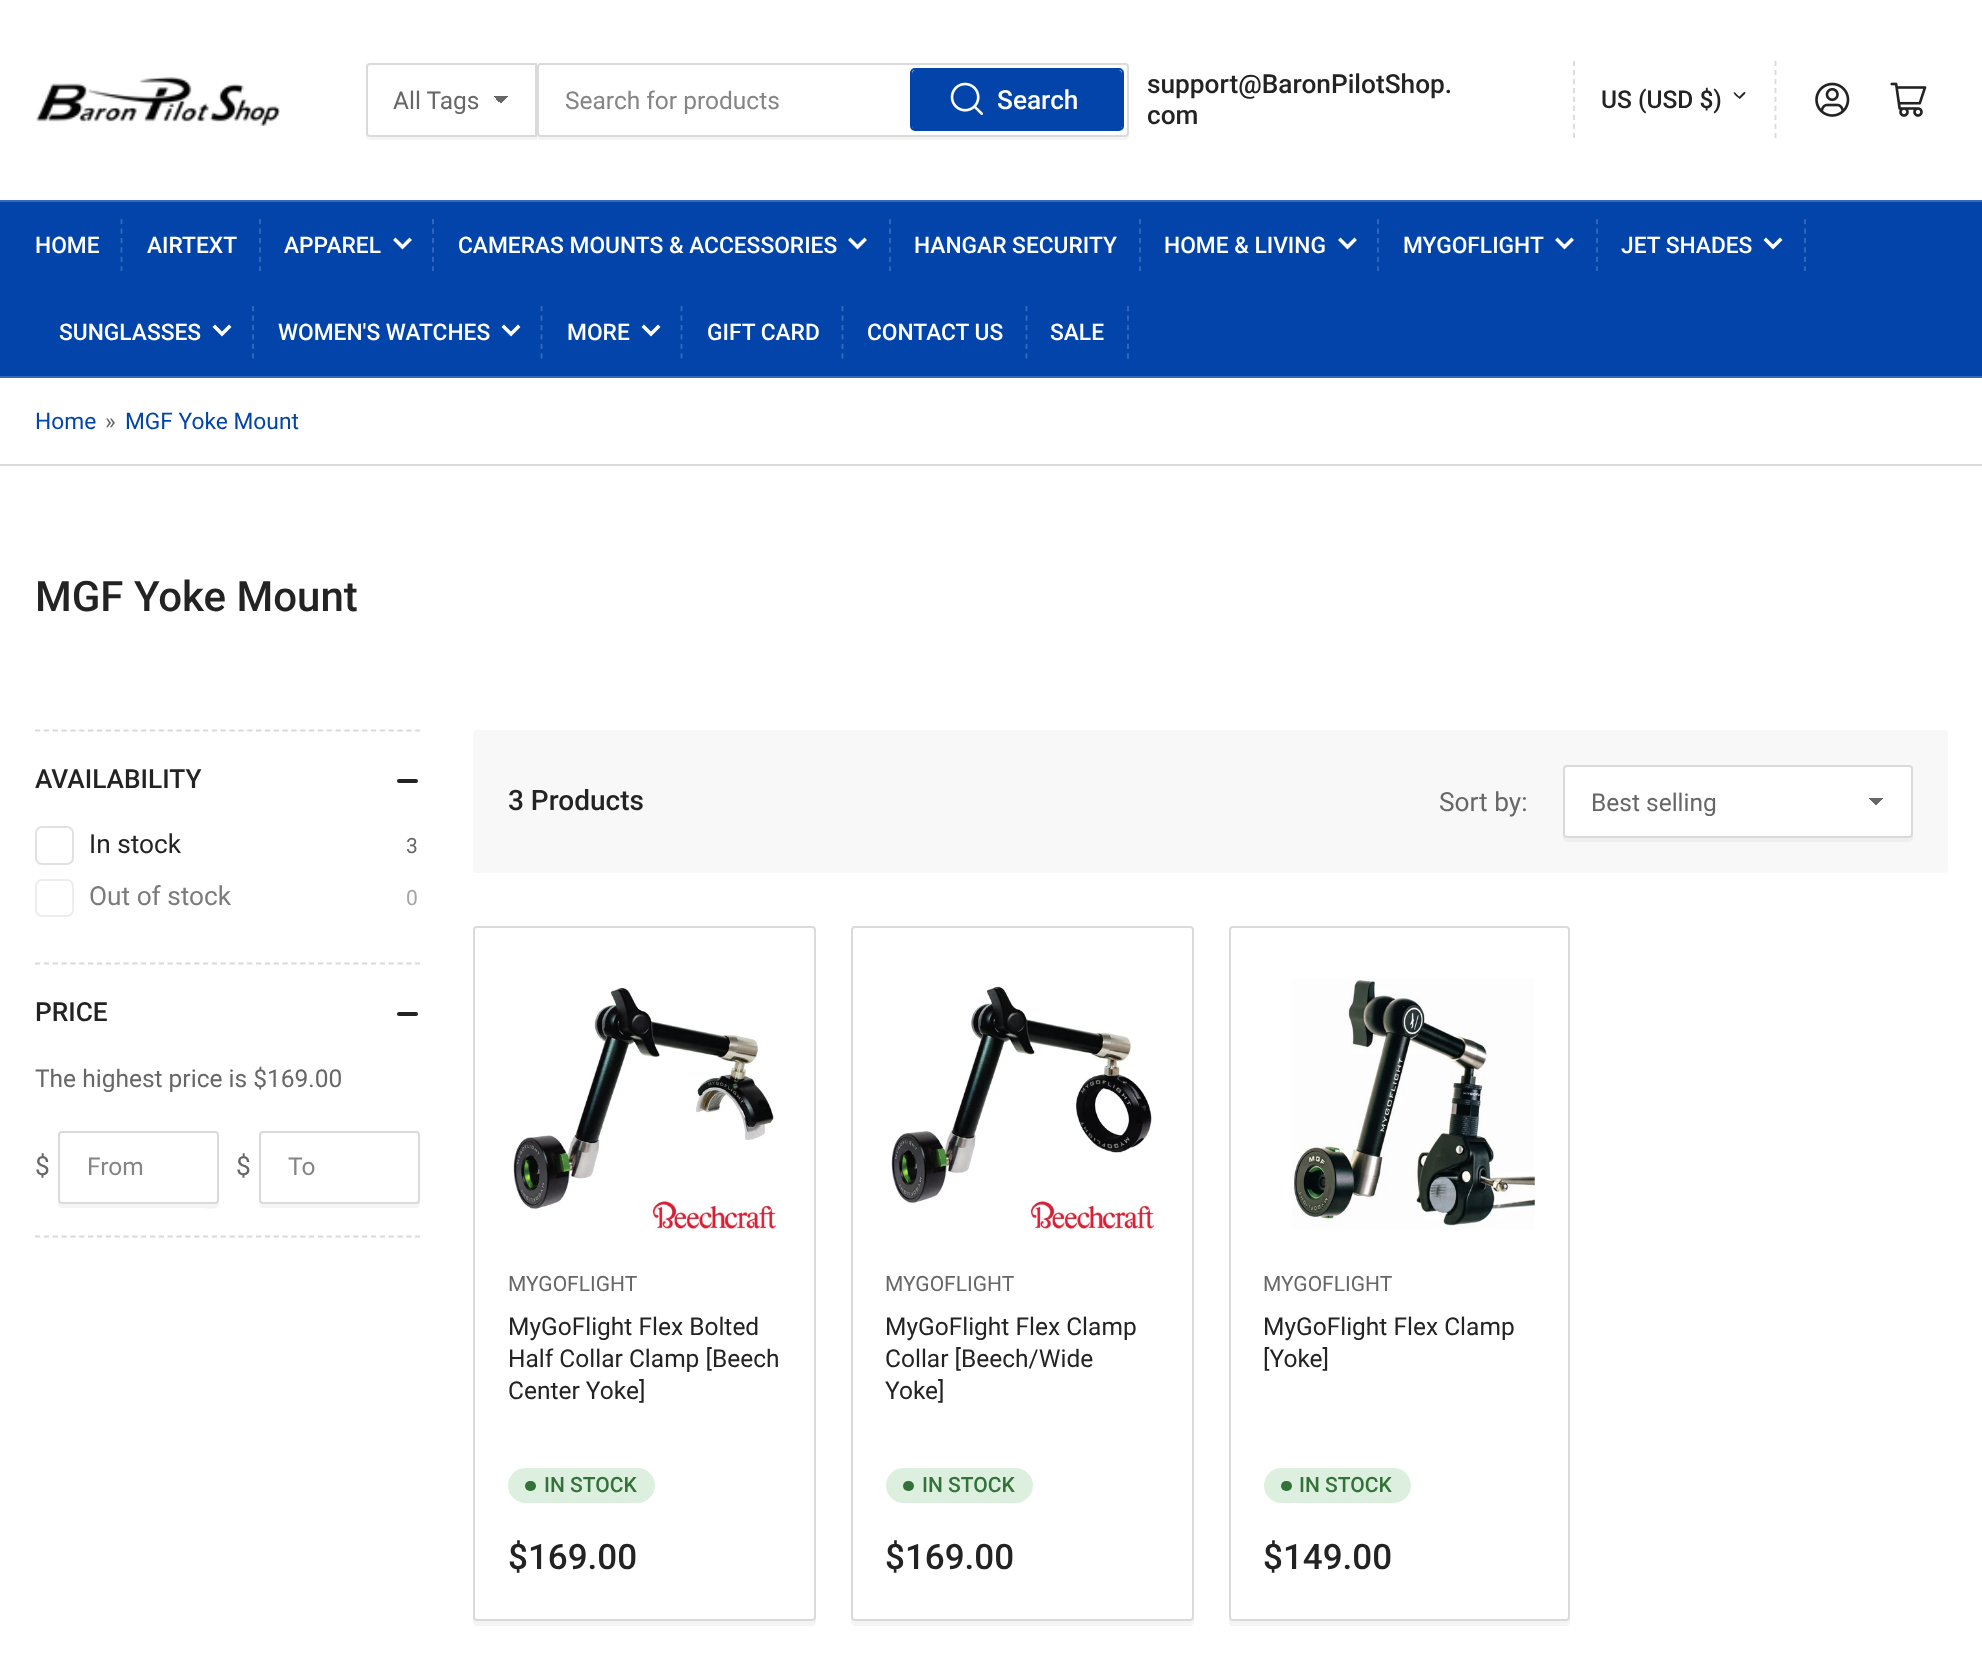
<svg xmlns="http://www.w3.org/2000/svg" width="1982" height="1674">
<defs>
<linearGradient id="g1" gradientUnits="userSpaceOnUse" x1="501" y1="95" x2="509" y2="104"><stop offset="0.5" stop-color="#676767"/><stop offset="0.5" stop-color="#fff"/></linearGradient>
<linearGradient id="g2" gradientUnits="userSpaceOnUse" x1="492" y1="104" x2="501" y2="95"><stop offset="0.5" stop-color="#fff"/><stop offset="0.5" stop-color="#676767"/></linearGradient>
<linearGradient id="g3" gradientUnits="userSpaceOnUse" x1="1876" y1="797" x2="1885" y2="806"><stop offset="0.5" stop-color="#676767"/><stop offset="0.5" stop-color="#fff"/></linearGradient>
<linearGradient id="g4" gradientUnits="userSpaceOnUse" x1="1867" y1="806" x2="1876" y2="797"><stop offset="0.5" stop-color="#fff"/><stop offset="0.5" stop-color="#676767"/></linearGradient>
</defs>
<rect width="100%" height="100%" fill="#fff"/>
<image x="36" y="77" width="244" height="49" href="media/1.png"/>
<rect x="367" y="64" width="169" height="72" rx="3" fill="none" stroke="#dadada" stroke-width="2"/>
<path d="M366 134v2c0 2 2 4 4 4h167v-4h-168c-1 0-2 0-3-2z" fill="#dadada4d"/>
<path d="M370 63h167v74h-167c-2 0-4-2-4-4v-66c0-2 2-4 4-4z" fill="#fff"/>
<rect x="501" y="96" width="7" height="9" fill="url(#g1)"/>
<rect x="494" y="96" width="7" height="7" fill="url(#g2)"/>
<path d="M370 64h166v72h-166c-1.5 0-3-1.5-3-3v-66c0-1.5 1.5-3 3-3z" fill="none" stroke="#dadada" stroke-width="2"/>
<text x="393" y="109" style="font-family:Roboto;font-size:24.5px;fill:#676767">All Tags</text>
<path d="M537 70v66c0 2 2 4 4 4h584c2 0 4-2 4-4v-66v63c0 2-2 3-4 3h-584c-2 0-4-1-4-3z" fill="#f4f4f4"/>
<rect x="538" y="64" width="590" height="72" rx="3" fill="#fff" stroke="#dadada" stroke-width="2"/>
<text x="565" y="109" style="font-family:Roboto;font-size:24.5px;fill:#858585">Search for products</text>
<rect x="911" y="69" width="212" height="61" rx="4" fill="none" stroke="#0244a9" stroke-width="2"/>
<rect x="912" y="70" width="210" height="60" rx="4" fill="#0244a9"/>
<image x="950" y="82" width="33" height="33" href="media/2.png"/>
<text x="997" y="109" style="font-family:Roboto;font-size:26.25px;font-weight:500;fill:#fff">Search</text>
<text x="1147" y="93" style="font-family:Roboto;font-size:26.25px;font-weight:500;fill:#232323">support@BaronPilotShop.</text>
<text x="1147" y="124" style="font-family:Roboto;font-size:26.25px;font-weight:500;fill:#232323">com</text>
<path d="M1775.5 61v77" fill="none" stroke="#dadada" stroke-width="1.8" stroke-dasharray="5.25 3.71"/>
<path d="M1574 61v77" fill="none" stroke="#dadada" stroke-width="1.8" stroke-dasharray="5.25 3.71"/>
<text x="1601" y="108" style="font-family:Roboto;font-size:24.5px;font-weight:500;fill:#232323">US (USD $)</text>
<path d="M1735 92.5l4 4c2 2 1 3-1 1c-1-.5-5.5-4.5-4-5.5z" fill="#232323"/>
<path d="M1739 97l4-4c2-2 3.5-.5 1.5 1.5c-1 .5-4.5 5.5-5.5 4z" fill="#232323"/>
<image x="1815" y="82" width="35" height="35" href="media/3.png"/>
<image x="1890" y="82" width="37" height="35" href="media/4.png"/>
<rect y="202" width="1982" height="174" fill="#0244a9"/>
<rect y="200" width="1982" height="2" fill="#3569ba"/>
<rect y="376" width="1982" height="2" fill="#3569ba"/>
<text x="35" y="253" style="font-family:Roboto;font-size:22.75px;font-weight:500;fill:#fff">HOME</text>
<path d="M121.5 219v52" fill="none" stroke="#3569ba" stroke-width="1.8" stroke-dasharray="5.25 4.2"/>
<text x="147" y="253" style="font-family:Roboto;font-size:22.75px;font-weight:500;fill:#fff">AIRTEXT</text>
<path d="M260 219v52" fill="none" stroke="#3569ba" stroke-width="1.8" stroke-dasharray="5.25 4.2"/>
<text x="284" y="253" style="font-family:Roboto;font-size:22.75px;font-weight:500;fill:#fff">APPAREL</text>
<path d="M409.5 240l-7 7l-7-7" fill="none" stroke="#fff" stroke-width="3.5" stroke-linecap="square"/>
<path d="M433 219v52" fill="none" stroke="#3569ba" stroke-width="1.8" stroke-dasharray="5.25 4.2"/>
<text x="458" y="253" style="font-family:Roboto;font-size:22.75px;font-weight:500;fill:#fff">CAMERAS MOUNTS &amp; ACCESSORIES</text>
<path d="M864.5 240l-7 7l-7-7" fill="none" stroke="#fff" stroke-width="3.5" stroke-linecap="square"/>
<path d="M890 219v52" fill="none" stroke="#3569ba" stroke-width="1.8" stroke-dasharray="5.25 4.2"/>
<text x="914" y="253" style="font-family:Roboto;font-size:22.75px;font-weight:500;fill:#fff">HANGAR SECURITY</text>
<path d="M1140 219v52" fill="none" stroke="#3569ba" stroke-width="1.8" stroke-dasharray="5.25 4.2"/>
<text x="1164" y="253" style="font-family:Roboto;font-size:22.75px;font-weight:500;fill:#fff">HOME &amp; LIVING</text>
<path d="M1354.5 240l-7 7l-7-7" fill="none" stroke="#fff" stroke-width="3.5" stroke-linecap="square"/>
<path d="M1378 219v52" fill="none" stroke="#3569ba" stroke-width="1.8" stroke-dasharray="5.25 4.2"/>
<text x="1403" y="253" style="font-family:Roboto;font-size:22.75px;font-weight:500;fill:#fff">MYGOFLIGHT</text>
<path d="M1571.5 240l-7 7l-7-7" fill="none" stroke="#fff" stroke-width="3.5" stroke-linecap="square"/>
<path d="M1597 219v52" fill="none" stroke="#3569ba" stroke-width="1.8" stroke-dasharray="5.25 4.2"/>
<text x="1621" y="253" style="font-family:Roboto;font-size:22.75px;font-weight:500;fill:#fff">JET SHADES</text>
<path d="M1780 240l-7 7l-7-7" fill="none" stroke="#fff" stroke-width="3.5" stroke-linecap="square"/>
<path d="M1805 219v52" fill="none" stroke="#3569ba" stroke-width="1.8" stroke-dasharray="5.25 4.2"/>
<text x="59" y="340" style="font-family:Roboto;font-size:22.75px;font-weight:500;fill:#fff">SUNGLASSES</text>
<path d="M229 327l-7 7l-7-7" fill="none" stroke="#fff" stroke-width="3.5" stroke-linecap="square"/>
<path d="M253 306v53" fill="none" stroke="#3569ba" stroke-width="1.8" stroke-dasharray="5.25 4.2"/>
<text x="278" y="340" style="font-family:Roboto;font-size:22.75px;font-weight:500;fill:#fff">WOMEN'S WATCHES</text>
<path d="M518 327l-7 7l-7-7" fill="none" stroke="#fff" stroke-width="3.5" stroke-linecap="square"/>
<path d="M541.5 306v53" fill="none" stroke="#3569ba" stroke-width="1.8" stroke-dasharray="5.25 4.2"/>
<text x="567" y="340" style="font-family:Roboto;font-size:22.75px;font-weight:500;fill:#fff">MORE</text>
<path d="M658 327l-7 7l-7-7" fill="none" stroke="#fff" stroke-width="3.5" stroke-linecap="square"/>
<path d="M681.5 306v53" fill="none" stroke="#3569ba" stroke-width="1.8" stroke-dasharray="5.25 4.2"/>
<text x="707" y="340" style="font-family:Roboto;font-size:22.75px;font-weight:500;fill:#fff">GIFT CARD</text>
<path d="M842.5 306v53" fill="none" stroke="#3569ba" stroke-width="1.8" stroke-dasharray="5.25 4.2"/>
<text x="867" y="340" style="font-family:Roboto;font-size:22.75px;font-weight:500;fill:#fff">CONTACT US</text>
<path d="M1026.5 306v53" fill="none" stroke="#3569ba" stroke-width="1.8" stroke-dasharray="5.25 4.2"/>
<text x="1050" y="340" style="font-family:Roboto;font-size:22.75px;font-weight:500;fill:#fff">SALE</text>
<path d="M1128 306v53" fill="none" stroke="#3569ba" stroke-width="1.8" stroke-dasharray="5.25 4.2"/>
<rect y="464" width="1982" height="2" fill="#dadada"/>
<text x="35" y="429" style="font-family:Roboto;font-size:22.75px;fill:#0244a9">Home</text>
<text x="105" y="429" style="font-family:Roboto;font-size:22.75px;fill:#676767">»</text>
<text x="125" y="429" style="font-family:Roboto;font-size:22.75px;fill:#0244a9">MGF Yoke Mount</text>
<text x="35" y="611" style="font-family:Roboto;font-size:42px;font-weight:500;fill:#232323">MGF Yoke Mount</text>
<path d="M35 730.5h385" fill="none" stroke="#dadada" stroke-width="1.8" stroke-dasharray="5.25 3.59"/>
<path d="M35 963.5h385" fill="none" stroke="#dadada" stroke-width="1.8" stroke-dasharray="5.25 3.59"/>
<text x="35" y="788" style="font-family:Roboto;font-size:26.25px;font-weight:500;fill:#232323">AVAILABILITY</text>
<rect x="397" y="779" width="13" height="4" rx="2" fill="#232323"/>
<rect x="404" y="779" width="14" height="4" rx="2" fill="#232323"/>
<rect x="36" y="827" width="37" height="37" rx="6" fill="none" stroke="#e1e1e1" stroke-width="2"/>
<text x="89" y="853" style="font-family:Roboto;font-size:26.25px;fill:#232323">In stock</text>
<text x="406" y="853" style="font-family:Roboto;font-size:21px;fill:#676767">3</text>
<rect x="36" y="880" width="37" height="36" rx="6" fill="none" stroke="#ededed" stroke-width="2"/>
<text x="89" y="905" style="font-family:Roboto;font-size:26.25px;fill:#7b7b7b">Out of stock</text>
<text x="406" y="905" style="font-family:Roboto;font-size:21px;fill:#a4a4a4">0</text>
<path d="M35 1236.5h385" fill="none" stroke="#dadada" stroke-width="1.8" stroke-dasharray="5.25 3.59"/>
<text x="35" y="1021" style="font-family:Roboto;font-size:26.25px;font-weight:500;fill:#232323">PRICE</text>
<rect x="397" y="1012" width="13" height="4" rx="2" fill="#232323"/>
<rect x="404" y="1012" width="14" height="4" rx="2" fill="#232323"/>
<text x="35" y="1087" style="font-family:Roboto;font-size:24.5px;fill:#676767">The highest price is $169.00</text>
<text x="35" y="1175" style="font-family:Roboto;font-size:26.25px;fill:#676767">$</text>
<path d="M58 1202c0 2 0 5 2 6h130c35 0 29 6 29-26v-45v63c0 2-2 4-4 4h-154c-1 0-2-1-3-2z" fill="#f4f4f4"/>
<rect x="59" y="1132" width="159" height="71" rx="3" fill="#fff" stroke="#dadada" stroke-width="2"/>
<text x="87" y="1175" style="font-family:Roboto;font-size:24.5px;fill:#858585">From</text>
<text x="236" y="1175" style="font-family:Roboto;font-size:26.25px;fill:#676767">$</text>
<path d="M259 1200v4c0 2 2 4 4 4h153c2 0 4-2 4-4v-4c0 2-2 4-4 4h-154c-1 0-3-2-3-4z" fill="#f4f4f4"/>
<rect x="260" y="1132" width="159" height="71" rx="3" fill="#fff" stroke="#dadada" stroke-width="2"/>
<text x="288" y="1175" style="font-family:Roboto;font-size:24.5px;fill:#858585">To</text>
<rect x="473" y="730" width="1475" height="143" rx="4" fill="#f8f8f8"/>
<text x="508" y="810" style="font-family:Roboto;font-size:28px;font-weight:500;fill:#232323">3 Products</text>
<text x="1439" y="811" style="font-family:Roboto;font-size:26.25px;fill:#676767">Sort by:</text>
<path d="M1563 836v2c0 2 2 4 4 4h342c2 0 4-2 4-4v-67v64c0 2-2 3-4 3h-343c-1 0-2-1-3-2z" fill="#efefef"/>
<rect x="1565" y="767" width="346" height="70" rx="2" fill="#fff"/>
<rect x="1876" y="798" width="8" height="7" fill="url(#g3)"/>
<rect x="1869" y="798" width="7" height="7" fill="url(#g4)"/>
<rect x="1564" y="766" width="348" height="71" rx="3" fill="none" stroke="#dadada" stroke-width="2"/>
<text x="1591" y="811" style="font-family:Roboto;font-size:24.5px;fill:#676767">Best selling</text>
<path d="M473 1619v3c0 2 2 4 4 4h335c2 0 4-2 4-4v-687v-2v684c0 2-2 3-4 3h-336c-1 0-2 0-3-1z" fill="#f4f4f4"/>
<rect x="474" y="927" width="341" height="693" rx="3" fill="#fff" stroke="#dadada" stroke-width="2"/>
<image x="513" y="987" width="265" height="244" href="media/5.png"/>
<text x="508" y="1291" style="font-family:Roboto;font-size:21px;fill:#676767">MYGOFLIGHT</text>
<text x="508" y="1335" style="font-family:Roboto;font-size:24.5px;fill:#232323">MyGoFlight Flex Bolted</text>
<text x="508" y="1367" style="font-family:Roboto;font-size:24.5px;fill:#232323">Half Collar Clamp [Beech</text>
<text x="508" y="1399" style="font-family:Roboto;font-size:24.5px;fill:#232323">Center Yoke]</text>
<rect x="508" y="1468" width="147" height="35" rx="17.5" fill="#ddf0df"/>
<rect x="525" y="1481" width="11" height="10" rx="5" fill="#337239"/>
<text x="544" y="1492" style="font-family:Roboto;font-size:21px;font-weight:500;fill:#337239">IN STOCK</text>
<text x="508" y="1569" style="font-family:Roboto;font-size:35px;font-weight:500;fill:#232323">$169.00</text>
<path d="M851 1619v3c0 2 2 4 4 4h335c2 0 4-2 4-4v-687v-2v684c0 2-2 3-4 3h-336c-1 0-2 0-3-1z" fill="#f4f4f4"/>
<rect x="852" y="927" width="341" height="693" rx="3" fill="#fff" stroke="#dadada" stroke-width="2"/>
<image x="891" y="986" width="265" height="245" href="media/6.png"/>
<text x="885" y="1291" style="font-family:Roboto;font-size:21px;fill:#676767">MYGOFLIGHT</text>
<text x="885" y="1335" style="font-family:Roboto;font-size:24.5px;fill:#232323">MyGoFlight Flex Clamp</text>
<text x="885" y="1367" style="font-family:Roboto;font-size:24.5px;fill:#232323">Collar [Beech/Wide</text>
<text x="885" y="1399" style="font-family:Roboto;font-size:24.5px;fill:#232323">Yoke]</text>
<rect x="886" y="1468" width="147" height="35" rx="17.5" fill="#ddf0df"/>
<rect x="903" y="1481" width="11" height="10" rx="5" fill="#337239"/>
<text x="922" y="1492" style="font-family:Roboto;font-size:21px;font-weight:500;fill:#337239">IN STOCK</text>
<text x="885" y="1569" style="font-family:Roboto;font-size:35px;font-weight:500;fill:#232323">$169.00</text>
<path d="M1229 1619v3c0 2 2 4 4 4h333c2 0 4-2 4-4v-688v683c0 2-2 3-4 3h-334c-1 0-2 0-3-1z" fill="#f4f4f4"/>
<rect x="1230" y="927" width="339" height="693" rx="3" fill="#fff" stroke="#dadada" stroke-width="2"/>
<image x="1292" y="979" width="243" height="250" href="media/7.png"/>
<text x="1263" y="1291" style="font-family:Roboto;font-size:21px;fill:#676767">MYGOFLIGHT</text>
<text x="1263" y="1335" style="font-family:Roboto;font-size:24.5px;fill:#232323">MyGoFlight Flex Clamp</text>
<text x="1263" y="1367" style="font-family:Roboto;font-size:24.5px;fill:#232323">[Yoke]</text>
<rect x="1264" y="1468" width="147" height="35" rx="17.5" fill="#ddf0df"/>
<rect x="1281" y="1481" width="11" height="10" rx="5" fill="#337239"/>
<text x="1299" y="1492" style="font-family:Roboto;font-size:21px;font-weight:500;fill:#337239">IN STOCK</text>
<text x="1263" y="1569" style="font-family:Roboto;font-size:35px;font-weight:500;fill:#232323">$149.00</text>
</svg>
